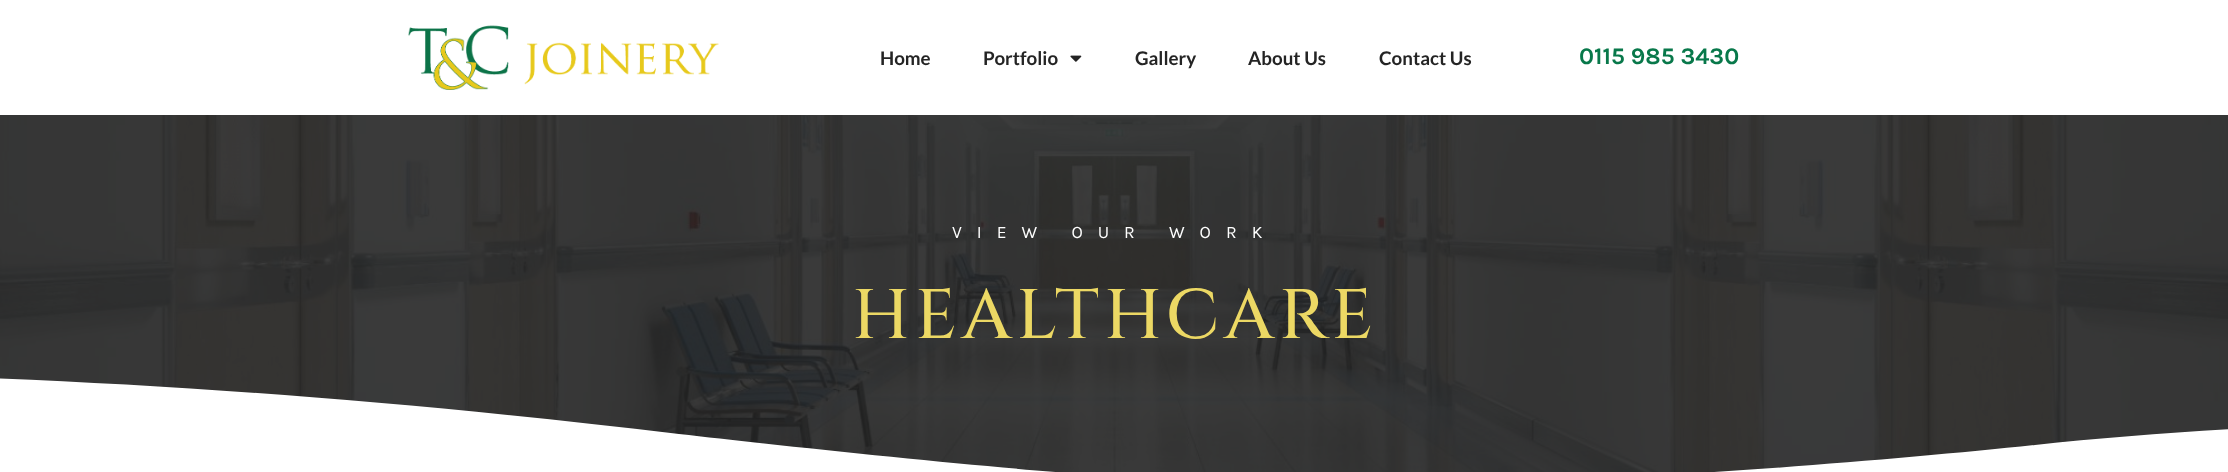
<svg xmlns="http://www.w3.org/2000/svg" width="2228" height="472">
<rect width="100%" height="100%" fill="#fff"/>
<image x="408" y="25" width="311" height="65" href="media/1.png"/>
<text x="880" y="65" style="font-family:Lato;font-size:18.75px;font-weight:bold;fill:#242424">Home</text>
<text x="983" y="65" style="font-family:Lato;font-size:18.75px;font-weight:bold;fill:#242424">Portfolio</text>
<image x="1070" y="55" width="12" height="7" href="media/2.png"/>
<text x="1135" y="65" style="font-family:Lato;font-size:18.75px;font-weight:bold;fill:#242424">Gallery</text>
<text x="1248" y="65" style="font-family:Lato;font-size:18.75px;font-weight:bold;fill:#242424">About Us</text>
<text x="1379" y="65" style="font-family:Lato;font-size:18.75px;font-weight:bold;fill:#242424">Contact Us</text>
<text x="1579" y="64" style="font-family:Karla;font-size:23.75px;font-weight:bold;fill:#08784a">0115 985 3430</text>
<image x="0" y="115" width="2228" height="357" href="media/3.png"/>
<text x="952" y="238" style="font-family:Karla;font-size:17.5px;letter-spacing:15px;fill:#fff">VIEW OUR WORK</text>
<text x="852" y="338" style="font-family:Cinzel;font-size:70px;font-weight:500;letter-spacing:4.9px;fill:#ecd864">HEALTHCARE</text>
<path d="M1460 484c-100 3-228-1-335-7c-104-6-314-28-446-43c-336-40-593-55-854-61c-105-3-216-5-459 3c-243 7-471 31-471 31v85h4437v-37c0 0-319-40-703-38c-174 1-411 8-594 28c-94 10-232 22-354 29c-120 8-175 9-221 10z" fill="#fff"/>
</svg>
